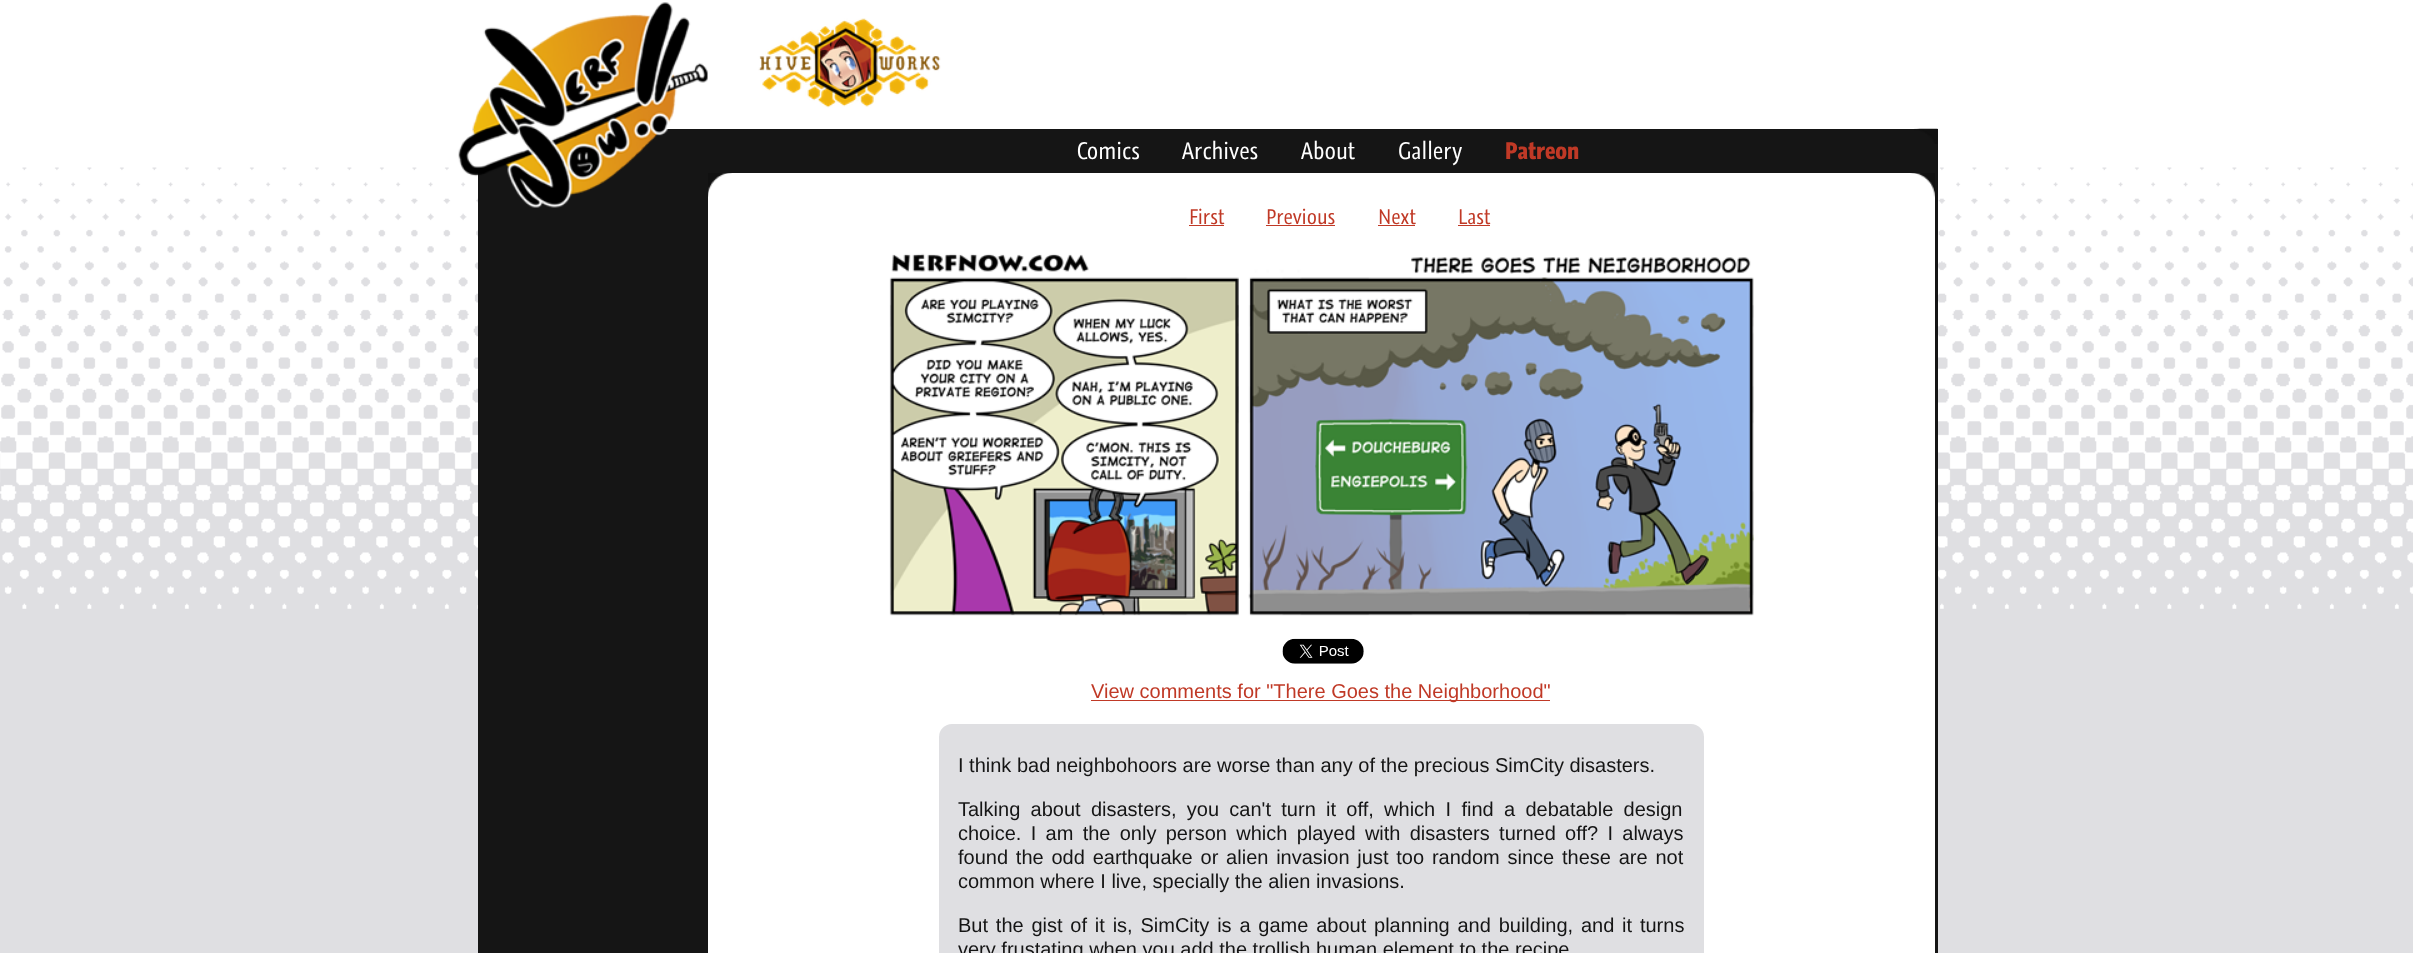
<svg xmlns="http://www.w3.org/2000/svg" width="2413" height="953">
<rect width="100%" height="100%" fill="#dfdfe2"/>
<image x="0" y="0" width="2413" height="609" href="media/1.png"/>
<rect x="478" y="129" width="230" height="824" fill="#151515"/>
<image x="458" y="2" width="250" height="206" href="media/2.png"/>
<image x="758" y="18" width="183" height="90" href="media/3.png"/>
<rect x="708" y="129" width="1230" height="44" fill="#151515"/>
<image x="1914" y="128" width="24" height="16" href="media/4.png"/>
<text x="1077" y="159" style="font-family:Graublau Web;font-size:22.5px;fill:#fff">Comics</text>
<text x="1182" y="159" style="font-family:Graublau Web;font-size:22.5px;fill:#fff">Archives</text>
<text x="1301" y="159" style="font-family:Graublau Web;font-size:22.5px;fill:#fff">About</text>
<text x="1398" y="159" style="font-family:Graublau Web;font-size:22.5px;fill:#fff">Gallery</text>
<text x="1505" y="159" style="font-family:Graublau Web;font-size:22.5px;font-weight:bold;fill:#c03926">Patreon</text>
<rect x="708" y="182" width="1220" height="34" fill="#fff"/>
<rect x="1935" y="173" width="3" height="780" fill="#151515"/>
<image x="708" y="173" width="24" height="24" href="media/5.png"/>
<image x="1910" y="173" width="25" height="25" href="media/6.png"/>
<rect x="708" y="216" width="1227" height="737" fill="#fff"/>
<text x="1189" y="224" style="font-family:Graublau Web;font-size:20px;fill:#c03926">First</text>
<rect x="1189" y="225" width="35" height="1" fill="#c03926"/>
<text x="1266" y="224" style="font-family:Graublau Web;font-size:20px;fill:#c03926">Previous</text>
<rect x="1266" y="225" width="69" height="1" fill="#c03926"/>
<text x="1378" y="224" style="font-family:Graublau Web;font-size:20px;fill:#c03926">Next</text>
<rect x="1378" y="225" width="37" height="1" fill="#c03926"/>
<text x="1458" y="224" style="font-family:Graublau Web;font-size:20px;fill:#c03926">Last</text>
<rect x="1458" y="225" width="32" height="1" fill="#c03926"/>
<image x="889" y="253" width="865" height="363" href="media/7.png"/>
<image x="1282" y="638" width="82" height="26" href="media/8.png"/>
<rect x="1091" y="700" width="459" height="1" fill="#c03926"/>
<text x="1091" y="698" style="font-family:Liberation Sans;font-size:20px;fill:#c03926">View comments for "There Goes the Neighborhood"</text>
<rect x="939" y="724" width="765" height="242" rx="13" fill="#dfdfe2"/>
<text x="958" y="772" style="font-family:Liberation Sans;font-size:20px;fill:#151515">I think bad neighbohoors are worse than any of the precious SimCity disasters.</text>
<text x="958" y="816" word-spacing="4.75" style="font-family:Liberation Sans;font-size:20px;fill:#151515">Talking about disasters, you can't turn it off, which I find a debatable design</text>
<text x="958" y="840" word-spacing="3.75" style="font-family:Liberation Sans;font-size:20px;fill:#151515">choice. I am the only person which played with disasters turned off? I always</text>
<text x="958" y="864" word-spacing="2.25" style="font-family:Liberation Sans;font-size:20px;fill:#151515">found the odd earthquake or alien invasion just too random since these are not</text>
<text x="958" y="888" style="font-family:Liberation Sans;font-size:20px;fill:#151515">common where I live, specially the alien invasions.</text>
<text x="958" y="932" word-spacing="2.25" style="font-family:Liberation Sans;font-size:20px;fill:#151515">But the gist of it is, SimCity is a game about planning and building, and it turns</text>
<text x="958" y="956" style="font-family:Liberation Sans;font-size:20px;fill:#151515">very frustating when you add the trollish human element to the recipe</text>
</svg>
